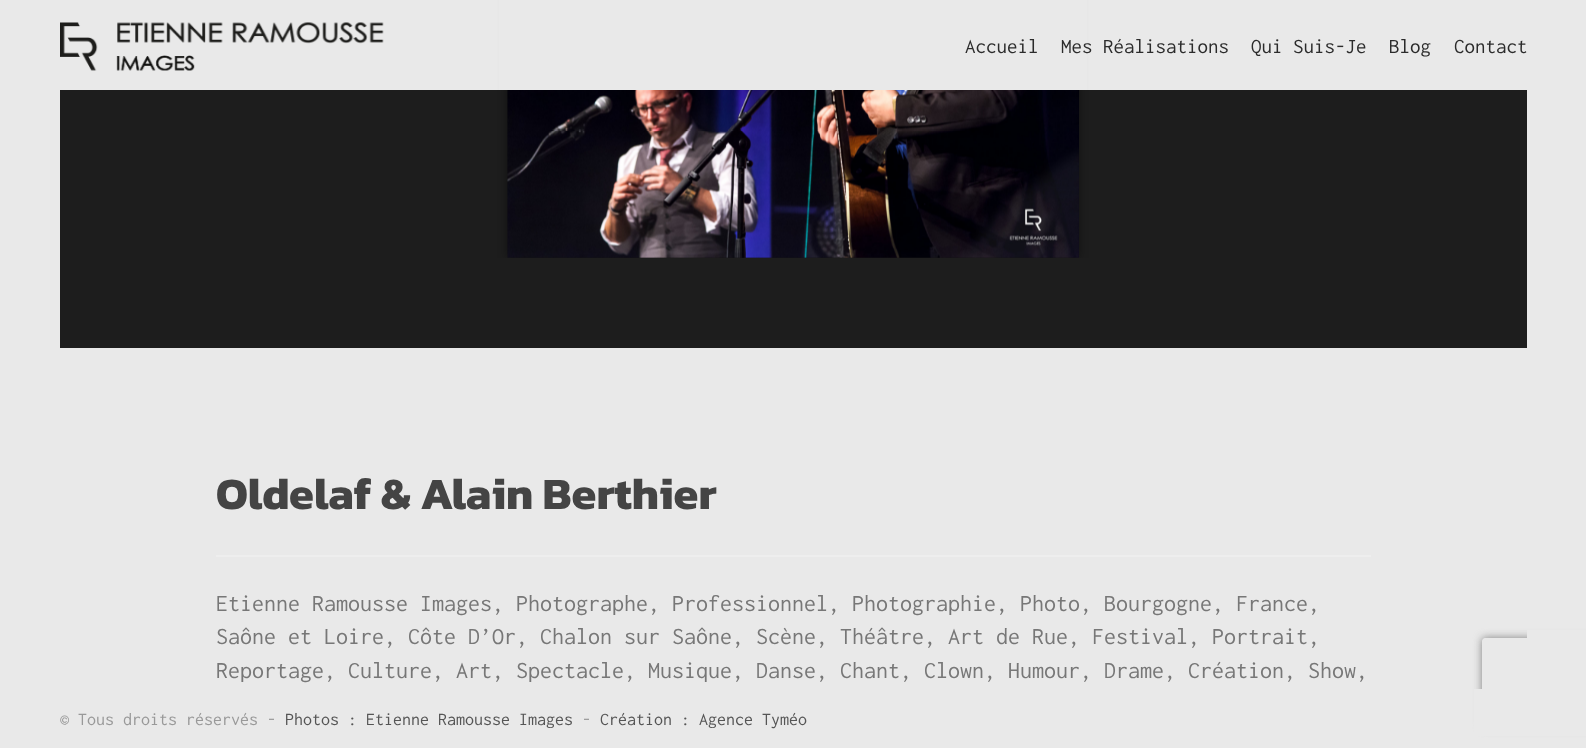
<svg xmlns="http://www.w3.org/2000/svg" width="1586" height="748">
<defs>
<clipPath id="clip1"><rect x="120" y="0" width="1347" height="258"/></clipPath>
<clipPath id="clip2"><path d="M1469 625h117v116h-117zm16 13h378c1.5 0 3 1.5 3 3v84c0 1.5-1.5 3-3 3h-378c-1.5 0-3-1.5-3-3v-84c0-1.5 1.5-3 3-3z" clip-rule="evenodd"/></clipPath>
</defs>
<rect width="100%" height="100%" fill="#e9e9e9"/>
<rect x="60" y="90" width="1467" height="258" fill="#1d1d1d"/>
<g clip-path="url(#clip1)">
<rect x="507" y="-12" width="572" height="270" fill="#00000066" filter="blur(4px)"/>
</g>
<rect x="499" width="588" height="90" fill="#e9e9e9"/>
<image x="60" y="22" width="324" height="49" href="media/1.png"/>
<text x="965" y="53" style="font-family:Inconsolata;font-size:21px;fill:#2b2b2b">Accueil</text>
<text x="1061" y="53" style="font-family:Inconsolata;font-size:21px;fill:#2b2b2b">Mes Réalisations</text>
<text x="1251" y="53" style="font-family:Inconsolata;font-size:21px;fill:#2b2b2b">Qui Suis-Je</text>
<text x="1389" y="53" style="font-family:Inconsolata;font-size:21px;fill:#2b2b2b">Blog</text>
<text x="1454" y="53" style="font-family:Inconsolata;font-size:21px;fill:#2b2b2b">Contact</text>
<image x="507" y="90" width="572" height="168" href="media/2.png"/>
<text x="216" y="509" style="font-family:Kanit;font-size:45px;font-weight:bold;fill:#444">Oldelaf &amp; Alain Berthier</text>
<rect x="216" y="555" width="1155" height="2" fill="#eee"/>
<text x="216" y="611" style="font-family:Inconsolata;font-size:24px;fill:#777">Etienne Ramousse Images, Photographe, Professionnel, Photographie, Photo, Bourgogne, France,</text>
<text x="216" y="644" style="font-family:Inconsolata;font-size:24px;fill:#777">Saône et Loire, Côte D’Or, Chalon sur Saône, Scène, Théâtre, Art de Rue, Festival, Portrait,</text>
<text x="216" y="678" style="font-family:Inconsolata;font-size:24px;fill:#777">Reportage, Culture, Art, Spectacle, Musique, Danse, Chant, Clown, Humour, Drame, Création, Show,</text>
<g clip-path="url(#clip2)">
<rect x="1482" y="638" width="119" height="90" rx="3" fill="#808080" filter="blur(4px)"/>
</g>
<rect x="1527" y="630" width="59" height="106" fill="#e9e9e9"/>
<rect x="1474" y="689" width="53" height="47" fill="#e9e9e9"/>
<text x="60" y="725" style="font-family:Inconsolata;font-size:18px;fill:#999">© Tous droits réservés -</text>
<text x="285" y="725" style="font-family:Inconsolata;font-size:18px;fill:#555">Photos : Etienne Ramousse Images</text>
<text x="582" y="725" style="font-family:Inconsolata;font-size:18px;fill:#999">-</text>
<text x="600" y="725" style="font-family:Inconsolata;font-size:18px;fill:#555">Création : Agence Tyméo</text>
</svg>
